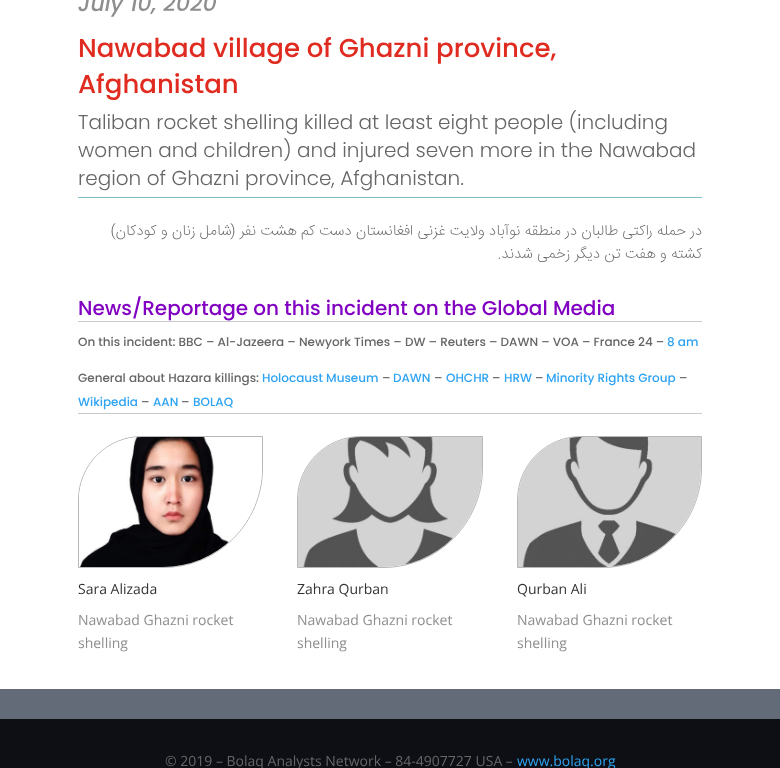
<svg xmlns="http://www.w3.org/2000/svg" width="780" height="768">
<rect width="100%" height="100%" fill="#636a78"/>
<rect width="780" height="689" fill="#fff"/>
<text x="78" y="11" style="font-family:Poppins;font-size:22px;font-weight:500;font-style:italic;fill:#8e8e8e">July 10, 2020</text>
<text x="78" y="57" style="font-family:Poppins;font-size:26px;font-weight:500;fill:#e02b20">Nawabad village of Ghazni province,</text>
<text x="78" y="93" style="font-family:Poppins;font-size:26px;font-weight:500;fill:#e02b20">Afghanistan</text>
<text x="78" y="129" style="font-family:Poppins;font-size:20px;font-weight:300;fill:#666">Taliban rocket shelling killed at least eight people (including</text>
<text x="78" y="157" style="font-family:Poppins;font-size:20px;font-weight:300;fill:#666">women and children) and injured seven more in the Nawabad</text>
<text x="78" y="185" style="font-family:Poppins;font-size:20px;font-weight:300;fill:#666">region of Ghazni province, Afghanistan.</text>
<rect x="78" y="197" width="624" height="1" fill="#7ebec5"/>
<text x="702" y="235" style="font-family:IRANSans;font-size:15px;font-weight:200;direction:rtl;fill:#666">در حمله راکتی طالبان در منطقه نوآباد ولایت غزنی افغانستان دست کم هشت نفر (شامل زنان و کودکان)</text>
<text x="702" y="258" style="font-family:IRANSans;font-size:15px;font-weight:200;direction:rtl;fill:#666">کشته و هفت تن دیگر زخمی شدند.</text>
<rect x="78" y="321" width="624" height="1" fill="#cacaca"/>
<text x="78" y="315" style="font-family:Poppins;font-size:20px;font-weight:500;fill:#8100c1">News/Reportage on this incident on the Global Media</text>
<rect x="78" y="413" width="624" height="1" fill="#cacaca"/>
<text x="78" y="346" style="font-family:Poppins;font-size:12px;font-weight:500;fill:#666">On this incident: BBC – Al-Jazeera – Newyork Times – DW – Reuters – DAWN – VOA – France 24 –</text>
<text x="667" y="346" style="font-family:Poppins;font-size:12px;font-weight:500;fill:#2ea3f2">8 am</text>
<text x="78" y="382" style="font-family:Poppins;font-size:12px;font-weight:500;fill:#666">General about Hazara killings:</text>
<text x="262" y="382" style="font-family:Poppins;font-size:12px;font-weight:500;fill:#2ea3f2">Holocaust Museum</text>
<text x="382" y="382" style="font-family:Poppins;font-size:12px;font-weight:500;fill:#666">–</text>
<text x="393" y="382" style="font-family:Poppins;font-size:12px;font-weight:500;fill:#2ea3f2">DAWN</text>
<text x="434" y="382" style="font-family:Poppins;font-size:12px;font-weight:500;fill:#666">–</text>
<text x="446" y="382" style="font-family:Poppins;font-size:12px;font-weight:500;fill:#2ea3f2">OHCHR</text>
<text x="492" y="382" style="font-family:Poppins;font-size:12px;font-weight:500;fill:#666">–</text>
<text x="504" y="382" style="font-family:Poppins;font-size:12px;font-weight:500;fill:#2ea3f2">HRW</text>
<text x="535" y="382" style="font-family:Poppins;font-size:12px;font-weight:500;fill:#666">–</text>
<text x="546" y="382" style="font-family:Poppins;font-size:12px;font-weight:500;fill:#2ea3f2">Minority Rights Group</text>
<text x="679" y="382" style="font-family:Poppins;font-size:12px;font-weight:500;fill:#666">–</text>
<text x="78" y="406" style="font-family:Poppins;font-size:12px;font-weight:500;fill:#2ea3f2">Wikipedia</text>
<text x="141" y="406" style="font-family:Poppins;font-size:12px;font-weight:500;fill:#666">–</text>
<text x="153" y="406" style="font-family:Poppins;font-size:12px;font-weight:500;fill:#2ea3f2">AAN</text>
<text x="181" y="406" style="font-family:Poppins;font-size:12px;font-weight:500;fill:#666">–</text>
<text x="193" y="406" style="font-family:Poppins;font-size:12px;font-weight:500;fill:#2ea3f2">BOLAQ</text>
<path d="M142 436.5h120.5v31.5c0 55-44.5 99.5-99.5 99.5h-84.5v-67.5c0-35 28.5-63.5 63.5-63.5z" fill="none" stroke="#b8b8b8"/>
<image x="79" y="437" width="183" height="130" href="media/1.png"/>
<text x="78" y="594" style="font-family:Open Sans;font-size:14px;fill:#333">Sara Alizada</text>
<text x="78" y="625" style="font-family:Open Sans;font-size:14px;fill:#8e8e8e">Nawabad Ghazni rocket</text>
<text x="78" y="648" style="font-family:Open Sans;font-size:14px;fill:#8e8e8e">shelling</text>
<path d="M361 436.5h121.5v31.5c0 55-44.5 99.5-99.5 99.5h-85.5v-67.5c0-35 28.5-63.5 63.5-63.5z" fill="none" stroke="#b8b8b8"/>
<image x="298" y="437" width="184" height="130" href="media/2.png"/>
<text x="297" y="594" style="font-family:Open Sans;font-size:14px;fill:#333">Zahra Qurban</text>
<text x="297" y="625" style="font-family:Open Sans;font-size:14px;fill:#8e8e8e">Nawabad Ghazni rocket</text>
<text x="297" y="648" style="font-family:Open Sans;font-size:14px;fill:#8e8e8e">shelling</text>
<path d="M581 436.5h120.5v31.5c0 55-44.5 99.5-99.5 99.5h-84.5v-67.5c0-35 28.5-63.5 63.5-63.5z" fill="none" stroke="#b8b8b8"/>
<image x="518" y="437" width="183" height="130" href="media/3.png"/>
<text x="517" y="594" style="font-family:Open Sans;font-size:14px;fill:#333">Qurban Ali</text>
<text x="517" y="625" style="font-family:Open Sans;font-size:14px;fill:#8e8e8e">Nawabad Ghazni rocket</text>
<text x="517" y="648" style="font-family:Open Sans;font-size:14px;fill:#8e8e8e">shelling</text>
<rect y="719" width="780" height="49" fill="#0d0f14"/>
<text x="165" y="766" style="font-family:Open Sans;font-size:14px;fill:#666">© 2019 – Bolaq Analysts Network – 84-4907727 USA –</text>
<text x="517" y="766" style="font-family:Open Sans;font-size:14px;fill:#2ea3f2">www.bolaq.org</text>
</svg>
